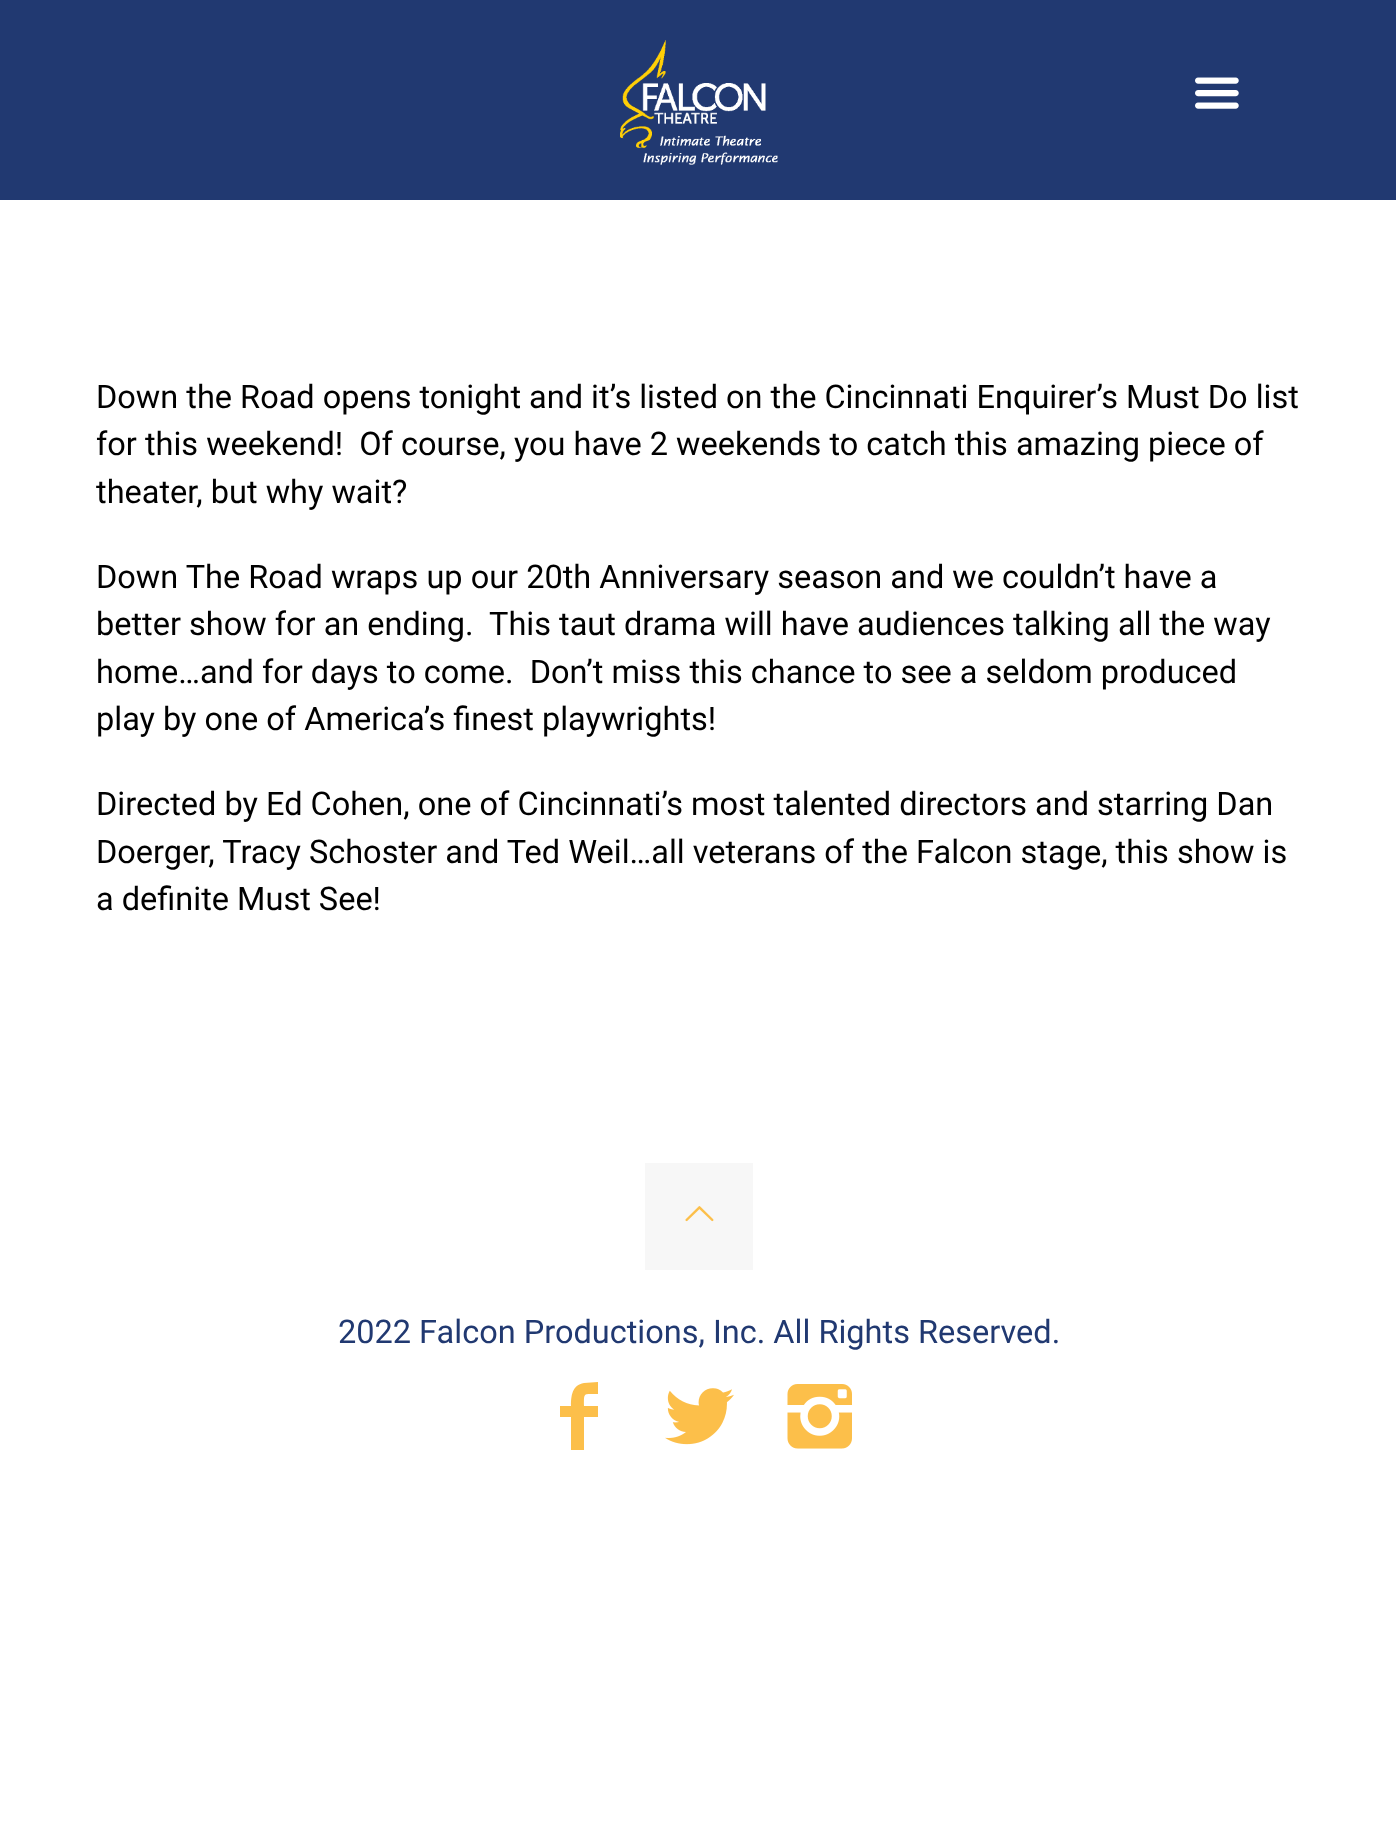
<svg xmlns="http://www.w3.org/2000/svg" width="1396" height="1821">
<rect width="100%" height="100%" fill="#fff"/>
<rect width="1396" height="200" fill="#213971"/>
<image x="620" y="40" width="158" height="125" href="media/1.png"/>
<image x="1195" y="77" width="44" height="32" href="media/2.png"/>
<text x="96" y="408" style="font-family:Roboto;font-size:32.5px;fill:#000">Down the Road opens tonight and it’s listed on the Cincinnati Enquirer’s Must Do list</text>
<text x="96" y="455" style="font-family:Roboto;font-size:32.5px;fill:#000" xml:space="preserve">for this weekend!  Of course, you have 2 weekends to catch this amazing piece of</text>
<text x="96" y="503" style="font-family:Roboto;font-size:32.5px;fill:#000">theater, but why wait?</text>
<text x="96" y="588" style="font-family:Roboto;font-size:32.5px;fill:#000">Down The Road wraps up our 20th Anniversary season and we couldn’t have a</text>
<text x="96" y="635" style="font-family:Roboto;font-size:32.5px;fill:#000" xml:space="preserve">better show for an ending.  This taut drama will have audiences talking all the way</text>
<text x="96" y="683" style="font-family:Roboto;font-size:32.5px;fill:#000" xml:space="preserve">home…and for days to come.  Don’t miss this chance to see a seldom produced</text>
<text x="96" y="730" style="font-family:Roboto;font-size:32.5px;fill:#000">play by one of America’s finest playwrights!</text>
<text x="96" y="815" style="font-family:Roboto;font-size:32.5px;fill:#000">Directed by Ed Cohen, one of Cincinnati’s most talented directors and starring Dan</text>
<text x="96" y="863" style="font-family:Roboto;font-size:32.5px;fill:#000">Doerger, Tracy Schoster and Ted Weil…all veterans of the Falcon stage, this show is</text>
<text x="96" y="910" style="font-family:Roboto;font-size:32.5px;fill:#000">a definite Must See!</text>
<rect x="645" y="1163" width="108" height="107" fill="#f7f7f7"/>
<image x="685" y="1206" width="29" height="16" href="media/3.png"/>
<text x="338" y="1343" style="font-family:Roboto;font-size:32.5px;fill:#213971">2022 Falcon Productions, Inc. All Rights Reserved.</text>
<path d="M598 1394c-15 0-14-2-14 12h14v11h-14v33h-13v-33h-11v-11h11c0-10 1-21 13-23l14-1z" fill="#fcbf4a"/>
<image x="665" y="1388" width="69" height="57" href="media/4.png"/>
<image x="787" y="1384" width="65" height="65" href="media/5.png"/>
</svg>
